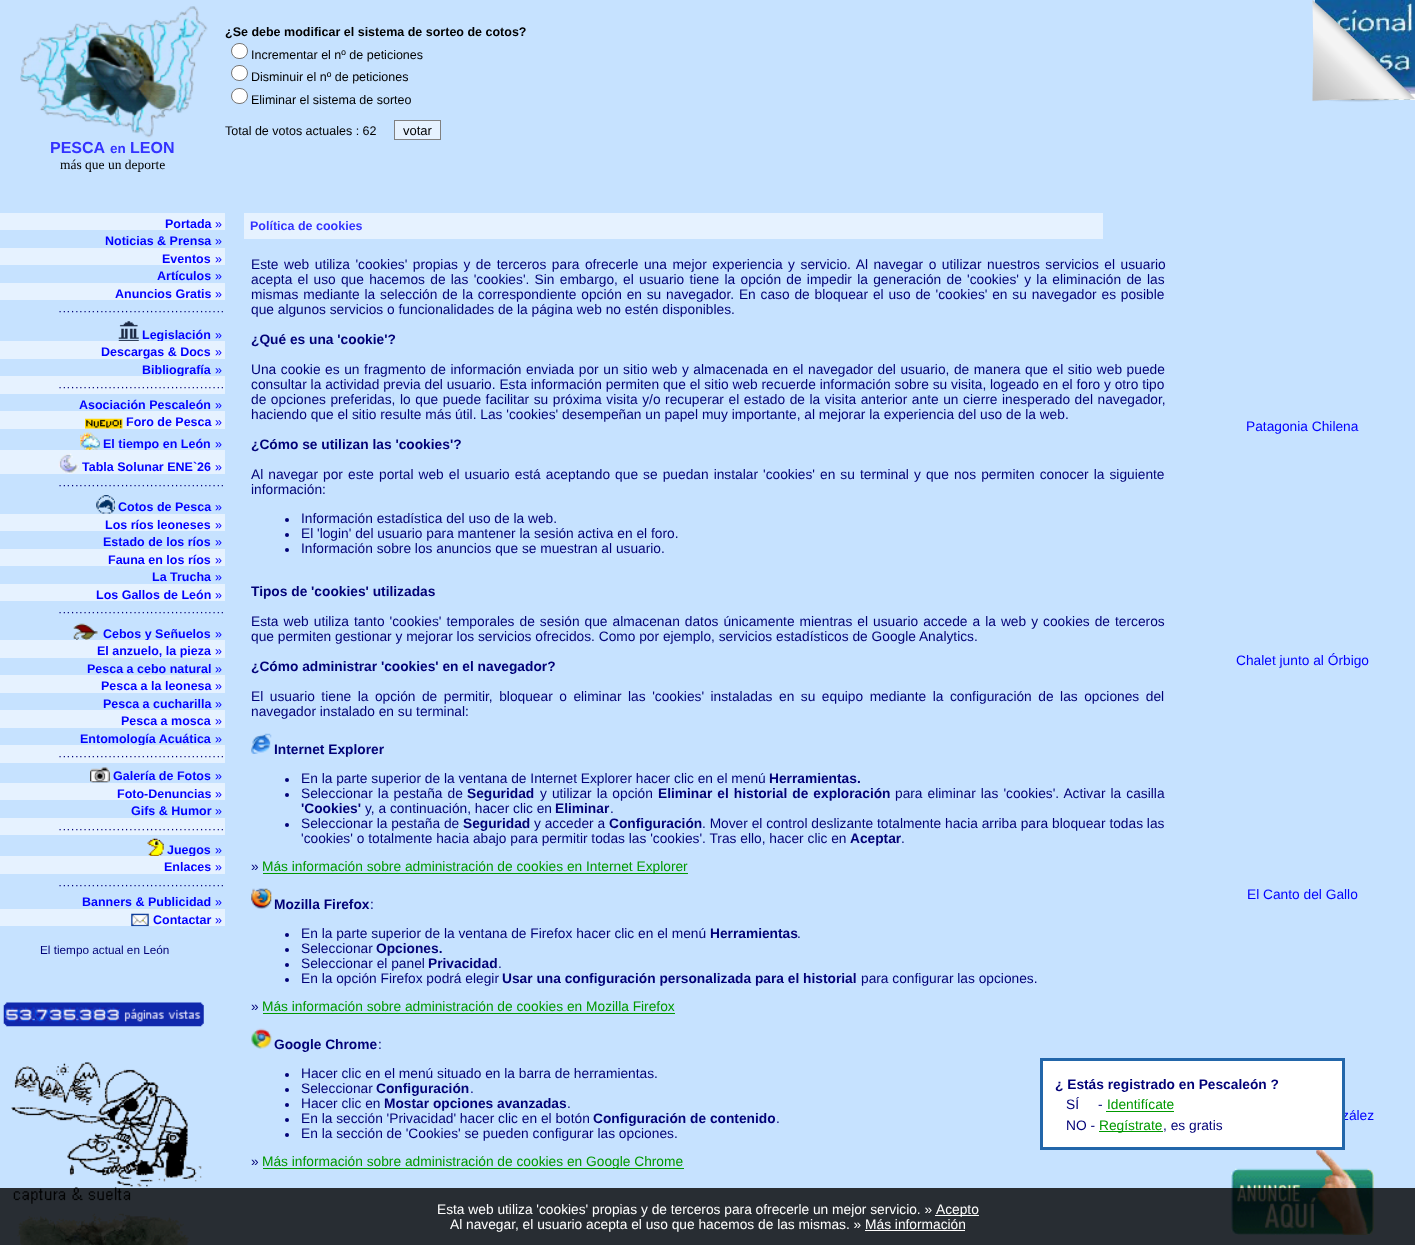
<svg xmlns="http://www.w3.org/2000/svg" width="1415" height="1245">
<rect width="100%" height="100%" fill="#c6e2ff"/>
<text x="225" y="36" style="font-family:Liberation Sans;font-size:12.5px;font-weight:bold;fill:#000">¿Se debe modificar el sistema de sorteo de cotos?</text>
<rect x="231.5" y="43.5" width="16" height="15" rx="7.5" fill="#fff" stroke="#767676"/>
<text x="251" y="59" style="font-family:Liberation Sans;font-size:12.5px;fill:#000">Incrementar el nº de peticiones</text>
<rect x="231.5" y="65.5" width="16" height="15" rx="7.5" fill="#fff" stroke="#767676"/>
<text x="251" y="81" style="font-family:Liberation Sans;font-size:12.5px;fill:#000">Disminuir el nº de peticiones</text>
<rect x="231.5" y="88.5" width="16" height="15" rx="7.5" fill="#fff" stroke="#767676"/>
<text x="251" y="104" style="font-family:Liberation Sans;font-size:12.5px;fill:#000">Eliminar el sistema de sorteo</text>
<text x="225" y="135" style="font-family:Liberation Sans;font-size:12.5px;fill:#000">Total de votos actuales : 62</text>
<rect x="394.5" y="120.5" width="46" height="19" fill="#e6f2ff" stroke="#808080"/>
<text x="403" y="135" style="font-family:Liberation Sans;font-size:13px;fill:#000">votar</text>
<image x="20" y="6" width="188" height="132" href="media/1.png"/>
<text x="50" y="153" style="font-family:Liberation Sans;font-size:16px;font-weight:bold;fill:#33f">PESCA</text>
<text x="110" y="153" style="font-family:Liberation Sans;font-size:13.5px;font-weight:bold;fill:#33f">en</text>
<text x="130" y="153" style="font-family:Liberation Sans;font-size:16px;font-weight:bold;fill:#33f">LEON</text>
<text x="60" y="169" style="font-family:Liberation Serif;font-size:13.5px;fill:#000">más que un deporte</text>
<image x="1315" y="0" width="100" height="100" href="media/3.png"/>
<image x="1312" y="0" width="103" height="102" href="media/2.png"/>
<rect y="213" width="225" height="17" fill="#e6f2ff"/>
<text x="165" y="228" style="font-family:Liberation Sans;font-size:12.5px;font-weight:bold;fill:#00f">Portada</text>
<text x="215" y="228" style="font-family:Liberation Sans;font-size:12.5px;fill:#00f">»</text>
<text x="105" y="245" style="font-family:Liberation Sans;font-size:12.5px;font-weight:bold;fill:#00f">Noticias &amp; Prensa</text>
<text x="215" y="245" style="font-family:Liberation Sans;font-size:12.5px;fill:#00f">»</text>
<rect y="248" width="225" height="17" fill="#e6f2ff"/>
<text x="162" y="263" style="font-family:Liberation Sans;font-size:12.5px;font-weight:bold;fill:#00f">Eventos</text>
<text x="215" y="263" style="font-family:Liberation Sans;font-size:12.5px;fill:#00f">»</text>
<text x="157" y="280" style="font-family:Liberation Sans;font-size:12.5px;font-weight:bold;fill:#00f">Artículos</text>
<text x="215" y="280" style="font-family:Liberation Sans;font-size:12.5px;fill:#00f">»</text>
<rect y="283" width="225" height="17" fill="#e6f2ff"/>
<text x="115" y="298" style="font-family:Liberation Sans;font-size:12.5px;font-weight:bold;fill:#00f">Anuncios Gratis</text>
<text x="215" y="298" style="font-family:Liberation Sans;font-size:12.5px;fill:#00f">»</text>
<text x="58" y="315" style="font-family:Liberation Sans;font-size:12.5px;fill:#007">········································</text>
<image x="118" y="321" width="21" height="20" href="media/4.png"/>
<text x="142" y="339" style="font-family:Liberation Sans;font-size:12.5px;font-weight:bold;fill:#00f">Legislación</text>
<text x="215" y="339" style="font-family:Liberation Sans;font-size:12.5px;fill:#00f">»</text>
<rect y="341" width="225" height="18" fill="#e6f2ff"/>
<text x="101" y="356" style="font-family:Liberation Sans;font-size:12.5px;font-weight:bold;fill:#00f">Descargas &amp; Docs</text>
<text x="215" y="356" style="font-family:Liberation Sans;font-size:12.5px;fill:#00f">»</text>
<text x="142" y="374" style="font-family:Liberation Sans;font-size:12.5px;font-weight:bold;fill:#00f">Bibliografía</text>
<text x="215" y="374" style="font-family:Liberation Sans;font-size:12.5px;fill:#00f">»</text>
<rect y="376" width="225" height="18" fill="#e6f2ff"/>
<text x="58" y="391" style="font-family:Liberation Sans;font-size:12.5px;fill:#007">········································</text>
<text x="79" y="409" style="font-family:Liberation Sans;font-size:12.5px;font-weight:bold;fill:#00f">Asociación Pescaleón</text>
<text x="215" y="409" style="font-family:Liberation Sans;font-size:12.5px;fill:#00f">»</text>
<rect y="411" width="225" height="18" fill="#e6f2ff"/>
<image x="85" y="418" width="38" height="11" href="media/5.png"/>
<text x="126" y="426" style="font-family:Liberation Sans;font-size:12.5px;font-weight:bold;fill:#00f">Foro de Pesca</text>
<text x="215" y="426" style="font-family:Liberation Sans;font-size:12.5px;fill:#00f">»</text>
<image x="80" y="432" width="20" height="18" href="media/6.png"/>
<text x="103" y="448" style="font-family:Liberation Sans;font-size:12.5px;font-weight:bold;fill:#00f">El tiempo en León</text>
<text x="215" y="448" style="font-family:Liberation Sans;font-size:12.5px;fill:#00f">»</text>
<rect y="450" width="225" height="24" fill="#e6f2ff"/>
<image x="58" y="453" width="21" height="21" href="media/7.png"/>
<text x="82" y="471" style="font-family:Liberation Sans;font-size:12.5px;font-weight:bold;fill:#00f">Tabla Solunar ENE`26</text>
<text x="215" y="471" style="font-family:Liberation Sans;font-size:12.5px;fill:#00f">»</text>
<text x="58" y="489" style="font-family:Liberation Sans;font-size:12.5px;fill:#007">········································</text>
<image x="96" y="495" width="19" height="19" href="media/8.png"/>
<text x="118" y="511" style="font-family:Liberation Sans;font-size:12.5px;font-weight:bold;fill:#00f">Cotos de Pesca</text>
<text x="215" y="511" style="font-family:Liberation Sans;font-size:12.5px;fill:#00f">»</text>
<rect y="514" width="225" height="17" fill="#e6f2ff"/>
<text x="105" y="529" style="font-family:Liberation Sans;font-size:12.5px;font-weight:bold;fill:#00f">Los ríos leoneses</text>
<text x="215" y="529" style="font-family:Liberation Sans;font-size:12.5px;fill:#00f">»</text>
<text x="103" y="546" style="font-family:Liberation Sans;font-size:12.5px;font-weight:bold;fill:#00f">Estado de los ríos</text>
<text x="215" y="546" style="font-family:Liberation Sans;font-size:12.5px;fill:#00f">»</text>
<rect y="549" width="225" height="17" fill="#e6f2ff"/>
<text x="108" y="564" style="font-family:Liberation Sans;font-size:12.5px;font-weight:bold;fill:#00f">Fauna en los ríos</text>
<text x="215" y="564" style="font-family:Liberation Sans;font-size:12.5px;fill:#00f">»</text>
<text x="152" y="581" style="font-family:Liberation Sans;font-size:12.5px;font-weight:bold;fill:#00f">La Trucha</text>
<text x="215" y="581" style="font-family:Liberation Sans;font-size:12.5px;fill:#00f">»</text>
<rect y="584" width="225" height="17" fill="#e6f2ff"/>
<text x="96" y="599" style="font-family:Liberation Sans;font-size:12.5px;font-weight:bold;fill:#00f">Los Gallos de León</text>
<text x="215" y="599" style="font-family:Liberation Sans;font-size:12.5px;fill:#00f">»</text>
<text x="58" y="616" style="font-family:Liberation Sans;font-size:12.5px;fill:#007">········································</text>
<image x="73" y="623" width="25" height="17" href="media/9.png"/>
<text x="103" y="638" style="font-family:Liberation Sans;font-size:12.5px;font-weight:bold;fill:#00f">Cebos y Señuelos</text>
<text x="215" y="638" style="font-family:Liberation Sans;font-size:12.5px;fill:#00f">»</text>
<rect y="640" width="225" height="18" fill="#e6f2ff"/>
<text x="97" y="655" style="font-family:Liberation Sans;font-size:12.5px;font-weight:bold;fill:#00f">El anzuelo, la pieza</text>
<text x="215" y="655" style="font-family:Liberation Sans;font-size:12.5px;fill:#00f">»</text>
<text x="87" y="673" style="font-family:Liberation Sans;font-size:12.5px;font-weight:bold;fill:#00f">Pesca a cebo natural</text>
<text x="215" y="673" style="font-family:Liberation Sans;font-size:12.5px;fill:#00f">»</text>
<rect y="675" width="225" height="18" fill="#e6f2ff"/>
<text x="101" y="690" style="font-family:Liberation Sans;font-size:12.5px;font-weight:bold;fill:#00f">Pesca a la leonesa</text>
<text x="215" y="690" style="font-family:Liberation Sans;font-size:12.5px;fill:#00f">»</text>
<text x="103" y="708" style="font-family:Liberation Sans;font-size:12.5px;font-weight:bold;fill:#00f">Pesca a cucharilla</text>
<text x="215" y="708" style="font-family:Liberation Sans;font-size:12.5px;fill:#00f">»</text>
<rect y="710" width="225" height="18" fill="#e6f2ff"/>
<text x="121" y="725" style="font-family:Liberation Sans;font-size:12.5px;font-weight:bold;fill:#00f">Pesca a mosca</text>
<text x="215" y="725" style="font-family:Liberation Sans;font-size:12.5px;fill:#00f">»</text>
<text x="80" y="743" style="font-family:Liberation Sans;font-size:12.5px;font-weight:bold;fill:#00f">Entomología Acuática</text>
<text x="215" y="743" style="font-family:Liberation Sans;font-size:12.5px;fill:#00f">»</text>
<rect y="745" width="225" height="18" fill="#e6f2ff"/>
<text x="58" y="760" style="font-family:Liberation Sans;font-size:12.5px;fill:#007">········································</text>
<image x="90" y="767" width="20" height="16" href="media/10.png"/>
<text x="113" y="780" style="font-family:Liberation Sans;font-size:12.5px;font-weight:bold;fill:#00f">Galería de Fotos</text>
<text x="215" y="780" style="font-family:Liberation Sans;font-size:12.5px;fill:#00f">»</text>
<rect y="783" width="225" height="17" fill="#e6f2ff"/>
<text x="117" y="798" style="font-family:Liberation Sans;font-size:12.5px;font-weight:bold;fill:#00f">Foto-Denuncias</text>
<text x="215" y="798" style="font-family:Liberation Sans;font-size:12.5px;fill:#00f">»</text>
<text x="131" y="815" style="font-family:Liberation Sans;font-size:12.5px;font-weight:bold;fill:#00f">Gifs &amp; Humor</text>
<text x="215" y="815" style="font-family:Liberation Sans;font-size:12.5px;fill:#00f">»</text>
<rect y="818" width="225" height="17" fill="#e6f2ff"/>
<text x="58" y="833" style="font-family:Liberation Sans;font-size:12.5px;fill:#007">········································</text>
<image x="147" y="838" width="17" height="18" href="media/11.png"/>
<text x="167" y="854" style="font-family:Liberation Sans;font-size:12.5px;font-weight:bold;fill:#00f">Juegos</text>
<text x="215" y="854" style="font-family:Liberation Sans;font-size:12.5px;fill:#00f">»</text>
<rect y="856" width="225" height="18" fill="#e6f2ff"/>
<text x="164" y="871" style="font-family:Liberation Sans;font-size:12.5px;font-weight:bold;fill:#00f">Enlaces</text>
<text x="215" y="871" style="font-family:Liberation Sans;font-size:12.5px;fill:#00f">»</text>
<text x="58" y="889" style="font-family:Liberation Sans;font-size:12.5px;fill:#007">········································</text>
<text x="82" y="906" style="font-family:Liberation Sans;font-size:12.5px;font-weight:bold;fill:#00f">Banners &amp; Publicidad</text>
<text x="215" y="906" style="font-family:Liberation Sans;font-size:12.5px;fill:#00f">»</text>
<rect y="909" width="225" height="17" fill="#e6f2ff"/>
<image x="131" y="913" width="18" height="14" href="media/12.png"/>
<text x="153" y="924" style="font-family:Liberation Sans;font-size:12.5px;font-weight:bold;fill:#00f">Contactar</text>
<text x="215" y="924" style="font-family:Liberation Sans;font-size:12.5px;fill:#00f">»</text>
<text x="40" y="954" style="font-family:Liberation Sans;font-size:11.75px;fill:#007">El tiempo actual en León</text>
<image x="3" y="1002" width="201" height="25" href="media/13.png"/>
<image x="5" y="1007" width="14" height="15" href="media/14.png"/>
<image x="18" y="1007" width="15" height="15" href="media/15.png"/>
<image x="32" y="1007" width="3" height="15" href="media/16.png"/>
<image x="35" y="1007" width="14" height="15" href="media/17.png"/>
<image x="48" y="1007" width="15" height="15" href="media/18.png"/>
<image x="62" y="1007" width="15" height="15" href="media/19.png"/>
<image x="76" y="1007" width="3" height="15" href="media/20.png"/>
<image x="78" y="1007" width="15" height="15" href="media/21.png"/>
<image x="92" y="1007" width="15" height="15" href="media/22.png"/>
<image x="106" y="1007" width="14" height="15" href="media/23.png"/>
<image x="11" y="1062" width="191" height="142" href="media/24.png"/>
<image x="17" y="1213" width="174" height="32" href="media/25.png"/>
<rect x="244" y="213" width="859" height="26" fill="#e6f2ff"/>
<text x="250" y="230" style="font-family:Liberation Sans;font-size:12.5px;font-weight:bold;fill:#33f">Política de cookies</text>
<text x="251" y="269" word-spacing="1.7" style="font-family:Liberation Sans;font-size:13.75px;fill:#007">Este web utiliza 'cookies' propias y de terceros para ofrecerle una mejor experiencia y servicio. Al navegar o utilizar nuestros servicios el usuario</text>
<text x="251" y="284" word-spacing="1.45" style="font-family:Liberation Sans;font-size:13.75px;fill:#007">acepta el uso que hacemos de las 'cookies'. Sin embargo, el usuario tiene la opción de impedir la generación de 'cookies' y la eliminación de las</text>
<text x="251" y="299" word-spacing="1" style="font-family:Liberation Sans;font-size:13.75px;fill:#007">mismas mediante la selección de la correspondiente opción en su navegador. En caso de bloquear el uso de 'cookies' en su navegador es posible</text>
<text x="251" y="314" style="font-family:Liberation Sans;font-size:13.75px;fill:#007">que algunos servicios o funcionalidades de la página web no estén disponibles.</text>
<text x="251" y="344" style="font-family:Liberation Sans;font-size:13.75px;font-weight:bold;fill:#007">¿Qué es una 'cookie'?</text>
<text x="251" y="374" word-spacing="0.75" style="font-family:Liberation Sans;font-size:13.75px;fill:#007">Una cookie es un fragmento de información enviada por un sitio web y almacenada en el navegador del usuario, de manera que el sitio web puede</text>
<text x="251" y="389" style="font-family:Liberation Sans;font-size:13.75px;fill:#007">consultar la actividad previa del usuario. Esta información permiten que el sitio web recuerde información sobre su visita, logeado en el foro y otro tipo</text>
<text x="251" y="404" word-spacing="0.75" style="font-family:Liberation Sans;font-size:13.75px;fill:#007">de opciones preferidas, lo que puede facilitar su próxima visita y/o recuperar el estado de la visita anterior ante un cierre inesperado del navegador,</text>
<text x="251" y="419" style="font-family:Liberation Sans;font-size:13.75px;fill:#007">haciendo que el sitio resulte más útil. Las 'cookies' desempeñan un papel muy importante, al mejorar la experiencia del uso de la web.</text>
<text x="251" y="449" style="font-family:Liberation Sans;font-size:13.75px;font-weight:bold;fill:#007">¿Cómo se utilizan las 'cookies'?</text>
<text x="251" y="479" word-spacing="1.25" style="font-family:Liberation Sans;font-size:13.75px;fill:#007">Al navegar por este portal web el usuario está aceptando que se puedan instalar 'cookies' en su terminal y que nos permiten conocer la siguiente</text>
<text x="251" y="494" style="font-family:Liberation Sans;font-size:13.75px;fill:#007">información:</text>
<circle cx="287" cy="520" r="2" fill="#007"/>
<text x="301" y="523" style="font-family:Liberation Sans;font-size:13.75px;fill:#007">Información estadística del uso de la web.</text>
<circle cx="287" cy="535" r="2" fill="#007"/>
<text x="301" y="538" style="font-family:Liberation Sans;font-size:13.75px;fill:#007">El 'login' del usuario para mantener la sesión activa en el foro.</text>
<circle cx="287" cy="550" r="2" fill="#007"/>
<text x="301" y="553" style="font-family:Liberation Sans;font-size:13.75px;fill:#007">Información sobre los anuncios que se muestran al usuario.</text>
<text x="251" y="596" style="font-family:Liberation Sans;font-size:13.75px;font-weight:bold;fill:#007">Tipos de 'cookies' utilizadas</text>
<text x="251" y="626" word-spacing="1.2" style="font-family:Liberation Sans;font-size:13.75px;fill:#007">Esta web utiliza tanto 'cookies' temporales de sesión que almacenan datos únicamente mientras el usuario accede a la web y cookies de terceros</text>
<text x="251" y="641" style="font-family:Liberation Sans;font-size:13.75px;fill:#007">que permiten gestionar y mejorar los servicios ofrecidos. Como por ejemplo, servicios estadísticos de Google Analytics.</text>
<text x="251" y="671" style="font-family:Liberation Sans;font-size:13.75px;font-weight:bold;fill:#007">¿Cómo administrar 'cookies' en el navegador?</text>
<text x="251" y="701" word-spacing="2.7" style="font-family:Liberation Sans;font-size:13.75px;fill:#007">El usuario tiene la opción de permitir, bloquear o eliminar las 'cookies' instaladas en su equipo mediante la configuración de las opciones del</text>
<text x="251" y="716" style="font-family:Liberation Sans;font-size:13.75px;fill:#007">navegador instalado en su terminal:</text>
<image x="251" y="733" width="21" height="21" href="media/26.png"/>
<text x="274" y="754" style="font-family:Liberation Sans;font-size:13.75px;font-weight:bold;fill:#007">Internet Explorer</text>
<circle cx="287" cy="780" r="2" fill="#007"/>
<text x="301" y="783" style="font-family:Liberation Sans;font-size:13.75px;fill:#007">En la parte superior de la ventana de Internet Explorer hacer clic en el menú</text>
<text x="769" y="783" style="font-family:Liberation Sans;font-size:13.75px;font-weight:bold;fill:#007">Herramientas.</text>
<circle cx="287" cy="795" r="2" fill="#007"/>
<text x="301" y="798" word-spacing="1.2" style="font-family:Liberation Sans;font-size:13.75px;fill:#007">Seleccionar la pestaña de</text>
<text x="467" y="798" style="font-family:Liberation Sans;font-size:13.75px;font-weight:bold;fill:#007">Seguridad</text>
<text x="540" y="798" word-spacing="1.2" style="font-family:Liberation Sans;font-size:13.75px;fill:#007">y utilizar la opción</text>
<text x="658" y="798" word-spacing="1.2" style="font-family:Liberation Sans;font-size:13.75px;font-weight:bold;fill:#007">Eliminar el historial de exploración</text>
<text x="895" y="798" word-spacing="1.25" style="font-family:Liberation Sans;font-size:13.75px;fill:#007">para eliminar las 'cookies'. Activar la casilla</text>
<text x="301" y="813" style="font-family:Liberation Sans;font-size:13.75px;font-weight:bold;fill:#007">'Cookies'</text>
<text x="365" y="813" style="font-family:Liberation Sans;font-size:13.75px;fill:#007">y, a continuación, hacer clic en</text>
<text x="555" y="813" style="font-family:Liberation Sans;font-size:13.75px;font-weight:bold;fill:#007">Eliminar</text>
<text x="610" y="813" style="font-family:Liberation Sans;font-size:13.75px;fill:#007">.</text>
<circle cx="287" cy="825" r="2" fill="#007"/>
<text x="301" y="828" style="font-family:Liberation Sans;font-size:13.75px;fill:#007">Seleccionar la pestaña de</text>
<text x="463" y="828" style="font-family:Liberation Sans;font-size:13.75px;font-weight:bold;fill:#007">Seguridad</text>
<text x="534" y="828" style="font-family:Liberation Sans;font-size:13.75px;fill:#007">y acceder a</text>
<text x="609" y="828" style="font-family:Liberation Sans;font-size:13.75px;font-weight:bold;fill:#007">Configuración</text>
<text x="702" y="828" style="font-family:Liberation Sans;font-size:13.75px;fill:#007">. Mover el control deslizante totalmente hacia arriba para bloquear todas las</text>
<text x="301" y="843" style="font-family:Liberation Sans;font-size:13.75px;fill:#007">'cookies' o totalmente hacia abajo para permitir todas las 'cookies'. Tras ello, hacer clic en</text>
<text x="850" y="843" style="font-family:Liberation Sans;font-size:13.75px;font-weight:bold;fill:#007">Aceptar</text>
<text x="901" y="843" style="font-family:Liberation Sans;font-size:13.75px;fill:#007">.</text>
<text x="251" y="871" style="font-family:Liberation Sans;font-size:13.75px;fill:#007">»</text>
<rect x="263" y="873" width="425" height="1" fill="#090"/>
<text x="262" y="871" style="font-family:Liberation Sans;font-size:13.75px;fill:#090">Más información sobre administración de cookies en Internet Explorer</text>
<image x="251" y="888" width="21" height="21" href="media/27.png"/>
<text x="274" y="909" style="font-family:Liberation Sans;font-size:13.75px;font-weight:bold;fill:#007">Mozilla Firefox</text>
<text x="370" y="909" style="font-family:Liberation Sans;font-size:13.75px;fill:#007">:</text>
<circle cx="287" cy="935" r="2" fill="#007"/>
<text x="301" y="938" style="font-family:Liberation Sans;font-size:13.75px;fill:#007">En la parte superior de la ventana de Firefox hacer clic en el menú</text>
<text x="710" y="938" style="font-family:Liberation Sans;font-size:13.75px;font-weight:bold;fill:#007">Herramientas</text>
<text x="797" y="938" style="font-family:Liberation Sans;font-size:13.75px;fill:#007">.</text>
<circle cx="287" cy="950" r="2" fill="#007"/>
<text x="301" y="953" style="font-family:Liberation Sans;font-size:13.75px;fill:#007">Seleccionar</text>
<text x="376" y="953" style="font-family:Liberation Sans;font-size:13.75px;font-weight:bold;fill:#007">Opciones.</text>
<circle cx="287" cy="965" r="2" fill="#007"/>
<text x="301" y="968" style="font-family:Liberation Sans;font-size:13.75px;fill:#007">Seleccionar el panel</text>
<text x="428" y="968" style="font-family:Liberation Sans;font-size:13.75px;font-weight:bold;fill:#007">Privacidad</text>
<text x="498" y="968" style="font-family:Liberation Sans;font-size:13.75px;fill:#007">.</text>
<circle cx="287" cy="980" r="2" fill="#007"/>
<text x="301" y="983" style="font-family:Liberation Sans;font-size:13.75px;fill:#007">En la opción Firefox podrá elegir</text>
<text x="502" y="983" style="font-family:Liberation Sans;font-size:13.75px;font-weight:bold;fill:#007">Usar una configuración personalizada para el historial</text>
<text x="861" y="983" style="font-family:Liberation Sans;font-size:13.75px;fill:#007">para configurar las opciones.</text>
<text x="251" y="1011" style="font-family:Liberation Sans;font-size:13.75px;fill:#007">»</text>
<text x="262" y="1011" style="font-family:Liberation Sans;font-size:13.75px;fill:#090">Más información sobre administración de cookies en Mozilla Firefox</text>
<rect x="263" y="1013" width="412" height="1" fill="#090"/>
<image x="251" y="1028" width="21" height="21" href="media/28.png"/>
<text x="274" y="1049" style="font-family:Liberation Sans;font-size:13.75px;font-weight:bold;fill:#007">Google Chrome</text>
<text x="378" y="1049" style="font-family:Liberation Sans;font-size:13.75px;fill:#007">:</text>
<circle cx="287" cy="1075" r="2" fill="#007"/>
<text x="301" y="1078" style="font-family:Liberation Sans;font-size:13.75px;fill:#007">Hacer clic en el menú situado en la barra de herramientas.</text>
<circle cx="287" cy="1090" r="2" fill="#007"/>
<text x="301" y="1093" style="font-family:Liberation Sans;font-size:13.75px;fill:#007">Seleccionar</text>
<text x="376" y="1093" style="font-family:Liberation Sans;font-size:13.75px;font-weight:bold;fill:#007">Configuración</text>
<text x="470" y="1093" style="font-family:Liberation Sans;font-size:13.75px;fill:#007">.</text>
<circle cx="287" cy="1105" r="2" fill="#007"/>
<text x="301" y="1108" style="font-family:Liberation Sans;font-size:13.75px;fill:#007">Hacer clic en</text>
<text x="384" y="1108" style="font-family:Liberation Sans;font-size:13.75px;font-weight:bold;fill:#007">Mostar opciones avanzadas</text>
<text x="567" y="1108" style="font-family:Liberation Sans;font-size:13.75px;fill:#007">.</text>
<circle cx="287" cy="1120" r="2" fill="#007"/>
<text x="301" y="1123" style="font-family:Liberation Sans;font-size:13.75px;fill:#007">En la sección 'Privacidad' hacer clic en el botón</text>
<text x="593" y="1123" style="font-family:Liberation Sans;font-size:13.75px;font-weight:bold;fill:#007">Configuración de contenido</text>
<text x="776" y="1123" style="font-family:Liberation Sans;font-size:13.75px;fill:#007">.</text>
<circle cx="287" cy="1135" r="2" fill="#007"/>
<text x="301" y="1138" style="font-family:Liberation Sans;font-size:13.75px;fill:#007">En la sección de 'Cookies' se pueden configurar las opciones.</text>
<text x="251" y="1166" style="font-family:Liberation Sans;font-size:13.75px;fill:#007">»</text>
<rect x="263" y="1168" width="421" height="1" fill="#090"/>
<text x="262" y="1166" style="font-family:Liberation Sans;font-size:13.75px;fill:#090">Más información sobre administración de cookies en Google Chrome</text>
<text x="1246" y="431" style="font-family:Liberation Sans;font-size:13.75px;fill:#00f">Patagonia Chilena</text>
<text x="1236" y="665" style="font-family:Liberation Sans;font-size:13.75px;fill:#00f">Chalet junto al Órbigo</text>
<text x="1247" y="899" style="font-family:Liberation Sans;font-size:13.75px;fill:#00f">El Canto del Gallo</text>
<text x="1342" y="1120" style="font-family:Liberation Sans;font-size:13.75px;fill:#00f">zález</text>
<image x="1231" y="1150" width="143" height="85" href="media/29.png"/>
<rect x="1041.5" y="1059.5" width="302" height="89" fill="#fff" stroke="#26a" stroke-width="3"/>
<text x="1055" y="1089" style="font-family:Liberation Sans;font-size:13.75px;font-weight:bold;fill:#007">¿ Estás registrado en Pescaleón ?</text>
<text x="1066" y="1109" style="font-family:Liberation Sans;font-size:13.75px;fill:#007">SÍ</text>
<text x="1098" y="1109" style="font-family:Liberation Sans;font-size:13.75px;fill:#007">-</text>
<text x="1107" y="1109" style="font-family:Liberation Sans;font-size:13.75px;fill:#090">Identifícate</text>
<rect x="1106" y="1111" width="68" height="1" fill="#090"/>
<text x="1066" y="1130" style="font-family:Liberation Sans;font-size:13.75px;fill:#007">NO -</text>
<rect x="1099" y="1131" width="64" height="1" fill="#090"/>
<text x="1099" y="1130" style="font-family:Liberation Sans;font-size:13.75px;fill:#090">Regístrate</text>
<text x="1163" y="1130" style="font-family:Liberation Sans;font-size:13.75px;fill:#007">, es gratis</text>
<rect y="1188" width="1415" height="57" fill="#000000cc"/>
<text x="437" y="1214" style="font-family:Liberation Sans;font-size:13.75px;fill:#fff">Esta web utiliza 'cookies' propias y de terceros para ofrecerle un mejor servicio. »</text>
<rect x="935" y="1215" width="44" height="1" fill="#fff"/>
<text x="936" y="1214" style="font-family:Liberation Sans;font-size:13.75px;fill:#fff">Acepto</text>
<text x="450" y="1229" style="font-family:Liberation Sans;font-size:13.75px;fill:#fff">Al navegar, el usuario acepta el uso que hacemos de las mismas. » Más información</text>
<rect x="865" y="1230" width="100" height="1" fill="#fff"/>
</svg>
